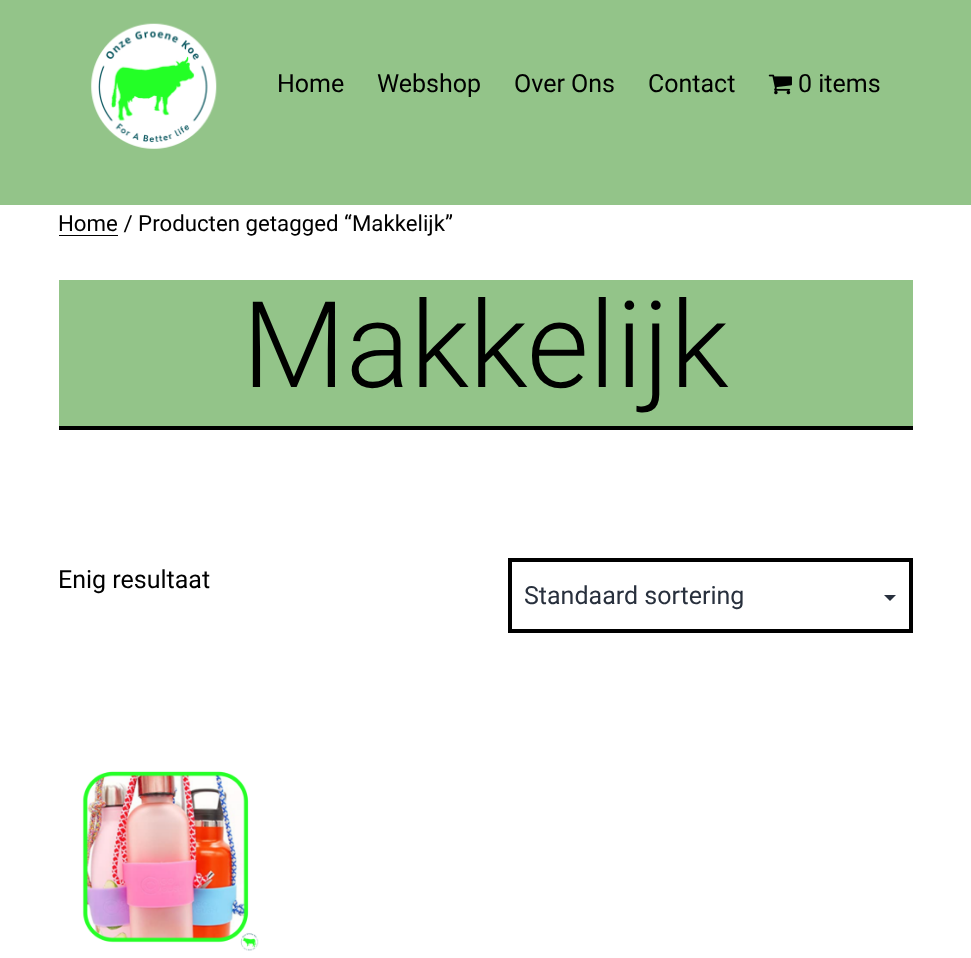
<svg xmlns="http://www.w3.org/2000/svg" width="971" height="958">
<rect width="100%" height="100%" fill="#fff"/>
<rect width="971" height="205" fill="#93c489"/>
<image x="91" y="23" width="126" height="126" href="media/1.png"/>
<text x="277" y="92" style="font-family:Roboto;font-size:25px;fill:#000">Home</text>
<text x="377" y="92" style="font-family:Roboto;font-size:25px;fill:#000">Webshop</text>
<text x="514" y="92" style="font-family:Roboto;font-size:25px;fill:#000">Over Ons</text>
<text x="648" y="92" style="font-family:Roboto;font-size:25px;fill:#000">Contact</text>
<image x="768" y="74" width="24" height="21" href="media/2.png"/>
<text x="798" y="92" style="font-family:Roboto;font-size:25px;fill:#000">0 items</text>
<rect x="59" y="235" width="59" height="1" fill="#000"/>
<text x="58" y="231" style="font-family:Roboto;font-size:22.25px;fill:#000">Home / Producten getagged “Makkelijk”</text>
<rect x="59" y="280" width="854" height="146" fill="#93c489"/>
<rect x="59" y="426" width="854" height="4" fill="#000"/>
<text x="242" y="387" style="font-family:Roboto;font-size:120px;font-weight:300;fill:#000">Makkelijk</text>
<text x="58" y="588" style="font-family:Roboto;font-size:25px;fill:#000">Enig resultaat</text>
<path d="M884 595h12l-6 6z" fill="#28303d"/>
<rect x="510" y="560" width="401" height="71" fill="none" stroke="#000" stroke-width="4"/>
<text x="524" y="604" style="font-family:Roboto;font-size:25px;fill:#28303d">Standaard sortering</text>
<image x="82" y="771" width="177" height="180" href="media/3.png"/>
</svg>
